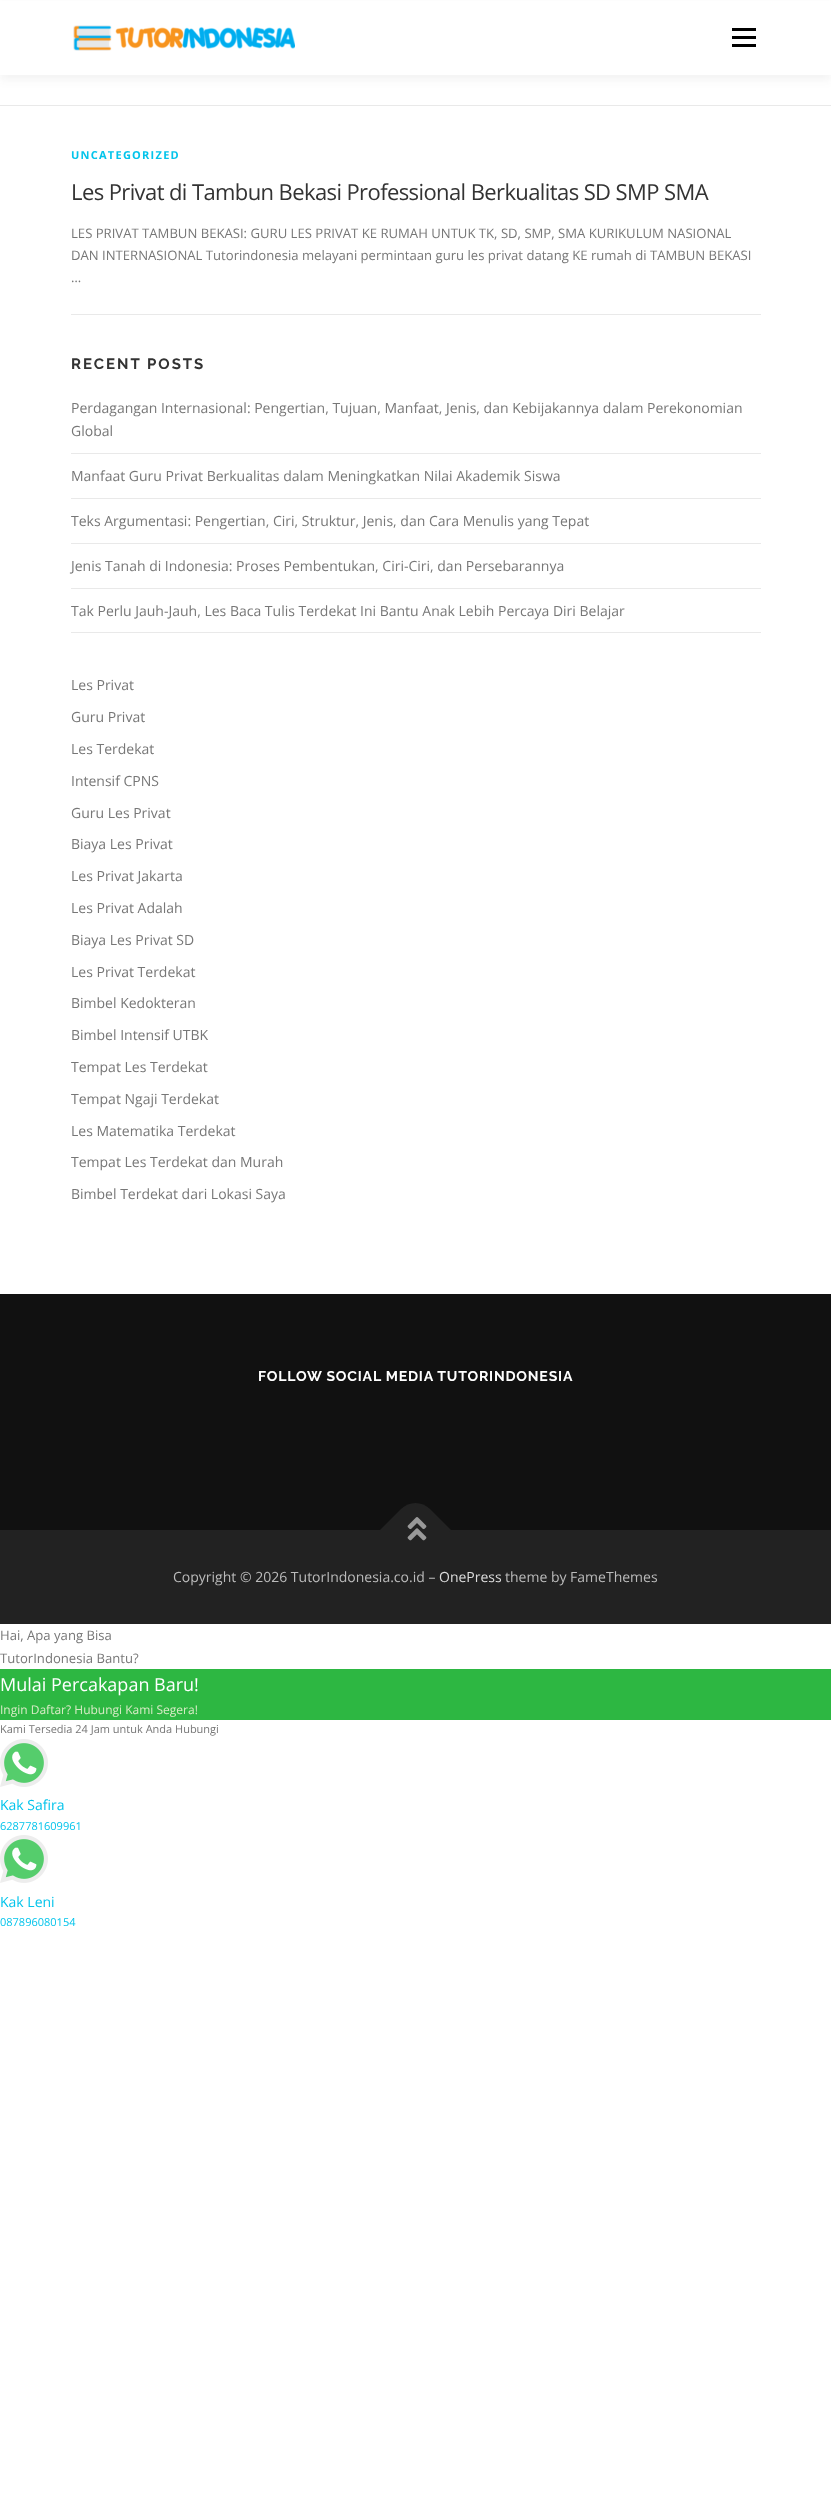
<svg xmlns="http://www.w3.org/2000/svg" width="831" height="2496">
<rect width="100%" height="100%" fill="#fff"/>
<rect y="5" width="831" height="75" fill="#3232320f" filter="blur(5px)"/>
<rect y="1" width="831" height="74" fill="#fff"/>
<image x="73" y="25" width="222" height="26" href="media/1.png"/>
<rect x="732" y="36" width="24" height="3" fill="#000"/>
<rect x="732" y="28" width="24" height="3" fill="#000"/>
<rect x="732" y="44" width="24" height="3" fill="#000"/>
<rect y="105" width="831" height="1" fill="#e9e9e9"/>
<rect x="71" y="314" width="690" height="1" fill="#e9e9e9"/>
<text x="71" y="159" style="font-family:Open Sans;font-size:11px;font-weight:bold;letter-spacing:1.25px;fill:#03c4eb">UNCATEGORIZED</text>
<text x="71" y="200" style="font-family:Open Sans;font-size:22px;letter-spacing:-0.6px;fill:#333">Les Privat di Tambun Bekasi Professional Berkualitas SD SMP SMA</text>
<text x="71" y="238" style="font-family:Open Sans;font-size:13.12px;fill:#777">LES PRIVAT TAMBUN BEKASI: GURU LES PRIVAT KE RUMAH UNTUK TK, SD, SMP, SMA KURIKULUM NASIONAL</text>
<text x="71" y="260" style="font-family:Open Sans;font-size:13.12px;fill:#777">DAN INTERNASIONAL Tutorindonesia melayani permintaan guru les privat datang KE rumah di TAMBUN BEKASI</text>
<text x="71" y="282" style="font-family:Open Sans;font-size:13.12px;fill:#777">…</text>
<text x="71" y="369" style="font-family:Raleway;font-size:15px;font-weight:bold;letter-spacing:2px;fill:#333">RECENT POSTS</text>
<rect x="71" y="453" width="690" height="1" fill="#e9e9e9"/>
<text x="71" y="413" style="font-family:Open Sans;font-size:14px;fill:#777">Perdagangan Internasional: Pengertian, Tujuan, Manfaat, Jenis, dan Kebijakannya dalam Perekonomian</text>
<text x="71" y="436" style="font-family:Open Sans;font-size:14px;fill:#777">Global</text>
<rect x="71" y="498" width="690" height="1" fill="#e9e9e9"/>
<text x="71" y="481" style="font-family:Open Sans;font-size:14px;fill:#777">Manfaat Guru Privat Berkualitas dalam Meningkatkan Nilai Akademik Siswa</text>
<rect x="71" y="543" width="690" height="1" fill="#e9e9e9"/>
<text x="71" y="526" style="font-family:Open Sans;font-size:14px;fill:#777">Teks Argumentasi: Pengertian, Ciri, Struktur, Jenis, dan Cara Menulis yang Tepat</text>
<rect x="71" y="588" width="690" height="1" fill="#e9e9e9"/>
<text x="71" y="571" style="font-family:Open Sans;font-size:14px;fill:#777">Jenis Tanah di Indonesia: Proses Pembentukan, Ciri-Ciri, dan Persebarannya</text>
<rect x="71" y="632" width="690" height="1" fill="#e9e9e9"/>
<text x="71" y="616" style="font-family:Open Sans;font-size:14px;fill:#777">Tak Perlu Jauh-Jauh, Les Baca Tulis Terdekat Ini Bantu Anak Lebih Percaya Diri Belajar</text>
<text x="71" y="690" style="font-family:Open Sans;font-size:14px;fill:#777">Les Privat</text>
<text x="71" y="722" style="font-family:Open Sans;font-size:14px;fill:#777">Guru Privat</text>
<text x="71" y="754" style="font-family:Open Sans;font-size:14px;fill:#777">Les Terdekat</text>
<text x="71" y="786" style="font-family:Open Sans;font-size:14px;fill:#777">Intensif CPNS</text>
<text x="71" y="818" style="font-family:Open Sans;font-size:14px;fill:#777">Guru Les Privat</text>
<text x="71" y="849" style="font-family:Open Sans;font-size:14px;fill:#777">Biaya Les Privat</text>
<text x="71" y="881" style="font-family:Open Sans;font-size:14px;fill:#777">Les Privat Jakarta</text>
<text x="71" y="913" style="font-family:Open Sans;font-size:14px;fill:#777">Les Privat Adalah</text>
<text x="71" y="945" style="font-family:Open Sans;font-size:14px;fill:#777">Biaya Les Privat SD</text>
<text x="71" y="977" style="font-family:Open Sans;font-size:14px;fill:#777">Les Privat Terdekat</text>
<text x="71" y="1008" style="font-family:Open Sans;font-size:14px;fill:#777">Bimbel Kedokteran</text>
<text x="71" y="1040" style="font-family:Open Sans;font-size:14px;fill:#777">Bimbel Intensif UTBK</text>
<text x="71" y="1072" style="font-family:Open Sans;font-size:14px;fill:#777">Tempat Les Terdekat</text>
<text x="71" y="1104" style="font-family:Open Sans;font-size:14px;fill:#777">Tempat Ngaji Terdekat</text>
<text x="71" y="1136" style="font-family:Open Sans;font-size:14px;fill:#777">Les Matematika Terdekat</text>
<text x="71" y="1167" style="font-family:Open Sans;font-size:14px;fill:#777">Tempat Les Terdekat dan Murah</text>
<text x="71" y="1199" style="font-family:Open Sans;font-size:14px;fill:#777">Bimbel Terdekat dari Lokasi Saya</text>
<rect y="1294" width="831" height="236" fill="#111"/>
<text x="258" y="1381" style="font-family:Raleway;font-size:14.1px;font-weight:bold;letter-spacing:0.8px;fill:#fff">FOLLOW SOCIAL MEDIA TUTORINDONESIA</text>
<rect y="1530" width="831" height="94" fill="#222"/>
<path d="M380 1530l21-21c8-8 21-8 29 0l21 21l-35 36z" fill="#222"/>
<image x="407" y="1517" width="20" height="24" href="media/2.png"/>
<text x="173" y="1582" style="font-family:Open Sans;font-size:14px;fill:#bbb">Copyright © 2026 TutorIndonesia.co.id –</text>
<text x="439" y="1582" style="font-family:Open Sans;font-size:14px;fill:#ddd">OnePress</text>
<text x="505" y="1582" style="font-family:Open Sans;font-size:14px;fill:#bbb">theme by FameThemes</text>
<text x="0" y="1640" style="font-family:Open Sans;font-size:13.12px;fill:#777">Hai, Apa yang Bisa</text>
<text x="0" y="1663" style="font-family:Open Sans;font-size:13.12px;fill:#777">TutorIndonesia Bantu?</text>
<rect y="1669" width="831" height="51" fill="#2db742"/>
<text x="0" y="1691" style="font-family:Open Sans;font-size:18px;fill:#fff">Mulai Percakapan Baru!</text>
<text x="0" y="1714" style="font-family:Open Sans;font-size:12px;fill:#d9ebc6">Ingin Daftar? Hubungi Kami Segera!</text>
<text x="0" y="1733" style="font-family:Open Sans;font-size:11px;fill:#777">Kami Tersedia 24 Jam untuk Anda Hubungi</text>
<image x="0" y="1739" width="48" height="48" href="media/3.png"/>
<text x="0" y="1810" style="font-family:Open Sans;font-size:14px;fill:#03c4eb">Kak Safira</text>
<text x="0" y="1830" style="font-family:Open Sans;font-size:11px;fill:#03c4eb">6287781609961</text>
<image x="0" y="1835" width="48" height="48" href="media/3.png"/>
<text x="0" y="1907" style="font-family:Open Sans;font-size:14px;fill:#03c4eb">Kak Leni</text>
<text x="0" y="1926" style="font-family:Open Sans;font-size:11px;fill:#03c4eb">087896080154</text>
</svg>
